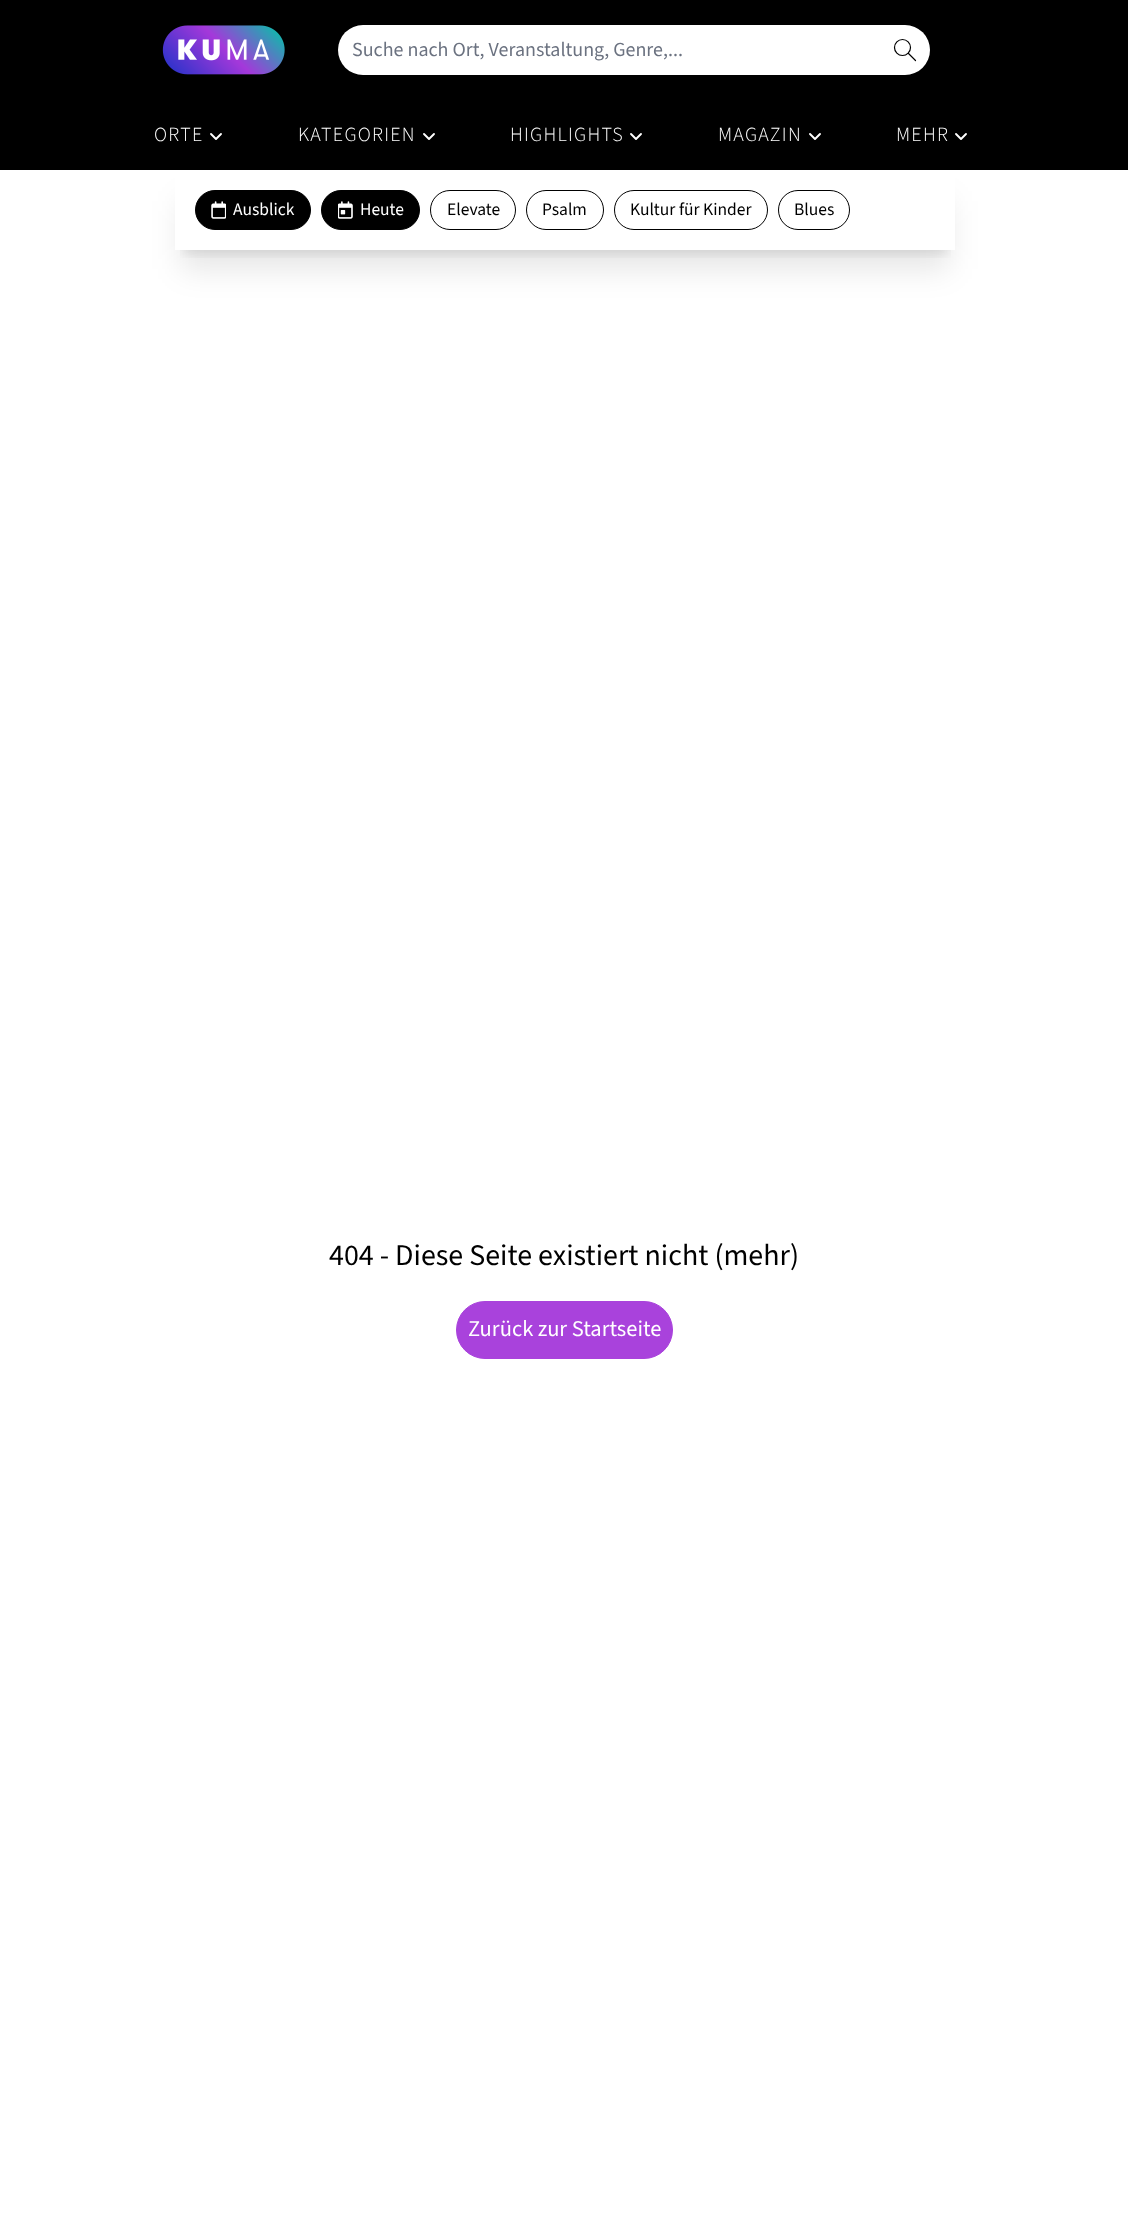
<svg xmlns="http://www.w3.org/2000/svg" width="1128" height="2230">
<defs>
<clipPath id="clip1"><rect x="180" y="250" width="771" height="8"/></clipPath>
<clipPath id="clip2"><path d="M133 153h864v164h-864zm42 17h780v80h-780z" clip-rule="evenodd"/></clipPath>
</defs>
<rect width="100%" height="100%" fill="#fff"/>
<g clip-path="url(#clip1)">
<rect x="183" y="188" width="765" height="65" fill="#0000001a" filter="blur(6px)"/>
</g>
<g clip-path="url(#clip2)">
<rect x="181" y="201" width="768" height="68" fill="#0000001a" filter="blur(15.5px)"/>
</g>
<rect width="1128" height="170" fill="#000"/>
<image x="162" y="25" width="123" height="50" href="media/1.png"/>
<rect x="338" y="25" width="592" height="50" rx="25" fill="#fff"/>
<text x="352" y="56" style="font-family:'Source Sans 3';font-size:20px;fill:#6b7280">Suche nach Ort, Veranstaltung, Genre,...</text>
<path d="M908.5 53.5l7 7" fill="none" stroke="#000" stroke-width="1.2" stroke-linecap="round"/>
<circle cx="902.5" cy="47.5" r="8" fill="none" stroke="#000" stroke-width="1.2"/>
<text x="154" y="141" style="font-family:'Source Sans 3';font-size:20px;font-weight:300;letter-spacing:1.25px;fill:#fff">ORTE</text>
<path d="M221 134l-5 5l-5-5" fill="none" stroke="#fff" stroke-width="1.9" stroke-linecap="round" stroke-linejoin="round"/>
<text x="298" y="141" style="font-family:'Source Sans 3';font-size:20px;font-weight:300;letter-spacing:1.25px;fill:#fff">KATEGORIEN</text>
<path d="M434 134l-5 5l-5-5" fill="none" stroke="#fff" stroke-width="1.9" stroke-linecap="round" stroke-linejoin="round"/>
<text x="510" y="141" style="font-family:'Source Sans 3';font-size:20px;font-weight:300;letter-spacing:1.25px;fill:#fff">HIGHLIGHTS</text>
<path d="M641 134l-5 5l-5-5" fill="none" stroke="#fff" stroke-width="1.9" stroke-linecap="round" stroke-linejoin="round"/>
<text x="718" y="141" style="font-family:'Source Sans 3';font-size:20px;font-weight:300;letter-spacing:1.25px;fill:#fff">MAGAZIN</text>
<path d="M820 134l-5 5l-5-5" fill="none" stroke="#fff" stroke-width="1.9" stroke-linecap="round" stroke-linejoin="round"/>
<text x="896" y="141" style="font-family:'Source Sans 3';font-size:20px;font-weight:300;letter-spacing:1.25px;fill:#fff">MEHR</text>
<path d="M966 134l-5 5l-5-5" fill="none" stroke="#fff" stroke-width="1.9" stroke-linecap="round" stroke-linejoin="round"/>
<rect x="195.5" y="190.5" width="115" height="39" rx="19.5" fill="#000" stroke="#000"/>
<image x="211" y="201" width="15" height="18" href="media/2.png"/>
<text x="233" y="215" style="font-family:'Source Sans 3';font-size:17.5px;fill:#fff">Ausblick</text>
<rect x="321.5" y="190.5" width="98" height="39" rx="19.5" fill="#000" stroke="#000"/>
<image x="338" y="201" width="15" height="18" href="media/3.png"/>
<text x="360" y="215" style="font-family:'Source Sans 3';font-size:17.5px;fill:#fff">Heute</text>
<rect x="430.5" y="190.5" width="85" height="39" rx="19.5" fill="none" stroke="#000"/>
<text x="447" y="215" style="font-family:'Source Sans 3';font-size:17.5px;fill:#000">Elevate</text>
<rect x="526.5" y="190.5" width="77" height="39" rx="19.5" fill="none" stroke="#000"/>
<text x="542" y="215" style="font-family:'Source Sans 3';font-size:17.5px;fill:#000">Psalm</text>
<rect x="614.5" y="190.5" width="153" height="39" rx="19.5" fill="none" stroke="#000"/>
<text x="630" y="215" style="font-family:'Source Sans 3';font-size:17.5px;fill:#000">Kultur für Kinder</text>
<rect x="778.5" y="190.5" width="71" height="39" rx="19.5" fill="none" stroke="#000"/>
<text x="794" y="215" style="font-family:'Source Sans 3';font-size:17.5px;fill:#000">Blues</text>
<text x="329" y="1265" style="font-family:'Source Sans 3';font-size:30px;fill:#000">404 - Diese Seite existiert nicht (mehr)</text>
<rect x="456.5" y="1301.5" width="216" height="57" rx="28.5" fill="#a942dc" stroke="#a942dc"/>
<text x="468" y="1336" style="font-family:'Source Sans 3';font-size:22.5px;fill:#fff">Zurück zur Startseite</text>
</svg>
